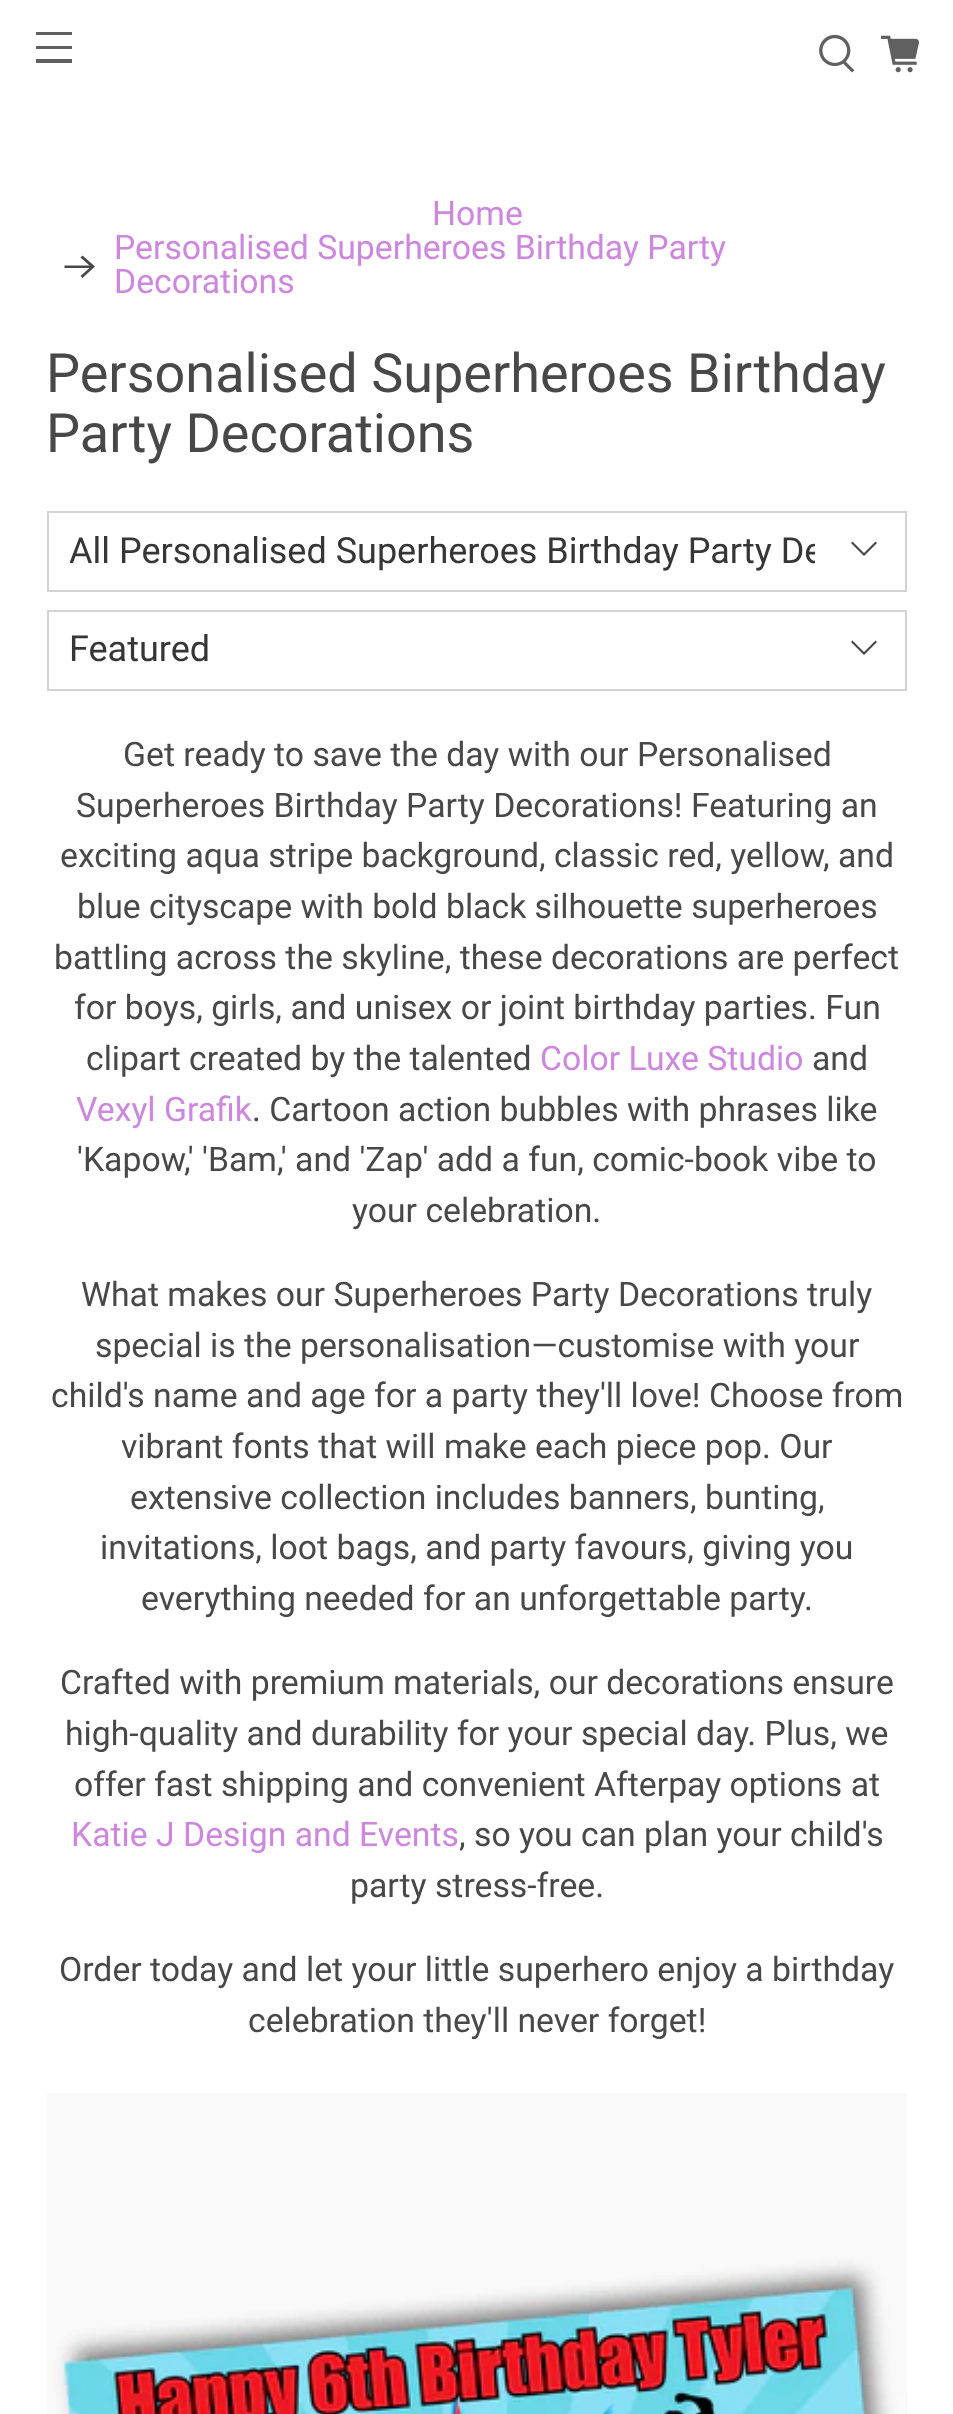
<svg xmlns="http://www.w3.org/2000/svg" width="953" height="2414">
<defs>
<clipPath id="clip1"><rect x="70" y="524" width="745" height="54"/></clipPath>
</defs>
<rect width="100%" height="100%" fill="#fff"/>
<rect x="36" y="32" width="36" height="3" fill="#606060"/>
<rect x="36" y="46" width="36" height="3" fill="#606060"/>
<rect x="36" y="59" width="36" height="4" fill="#606060"/>
<image x="819" y="34" width="36" height="39" href="media/1.png"/>
<image x="880" y="35" width="39" height="38" href="media/2.png"/>
<text x="432" y="225" style="font-family:Roboto;font-size:33.75px;fill:#cd87de">Home</text>
<path d="M82.5 255.5l-2 2l9 8h-25v2.5h25l-9 8l2 2l12.5-11.5z" fill="#484848"/>
<text x="114" y="259" style="font-family:Roboto;font-size:33.75px;fill:#cd87de">Personalised Superheroes Birthday Party</text>
<text x="114" y="293" style="font-family:Roboto;font-size:33.75px;fill:#cd87de">Decorations</text>
<text x="46" y="392" style="font-family:Roboto;font-size:54px;fill:#484848">Personalised Superheroes Birthday</text>
<text x="46" y="452" style="font-family:Roboto;font-size:54px;fill:#484848">Party Decorations</text>
<rect x="48" y="512" width="858" height="79" fill="none" stroke="#d3d3d3" stroke-width="2"/>
<g clip-path="url(#clip1)">
<text x="69" y="563" style="font-family:Roboto;font-size:36px;fill:#363636">All Personalised Superheroes Birthday Party De</text>
</g>
<path d="M864 556l-13-13l1.5-1.5l11.5 11.5l11.5-11.5l1.5 1.5z" fill="#484848"/>
<rect x="48" y="611" width="858" height="79" fill="none" stroke="#d3d3d3" stroke-width="2"/>
<text x="69" y="661" style="font-family:Roboto;font-size:36px;fill:#363636">Featured</text>
<path d="M864 655l-13-13l1.5-1.5l11.5 11.5l11.5-11.5l1.5 1.5z" fill="#484848"/>
<text x="123" y="766" style="font-family:Roboto;font-size:33.75px;fill:#484848">Get ready to save the day with our Personalised</text>
<text x="76" y="817" style="font-family:Roboto;font-size:33.75px;fill:#484848">Superheroes Birthday Party Decorations! Featuring an</text>
<text x="60" y="867" style="font-family:Roboto;font-size:33.75px;fill:#484848">exciting aqua stripe background, classic red, yellow, and</text>
<text x="77" y="918" style="font-family:Roboto;font-size:33.75px;fill:#484848">blue cityscape with bold black silhouette superheroes</text>
<text x="54" y="969" style="font-family:Roboto;font-size:33.75px;fill:#484848">battling across the skyline, these decorations are perfect</text>
<text x="74" y="1019" style="font-family:Roboto;font-size:33.75px;fill:#484848">for boys, girls, and unisex or joint birthday parties. Fun</text>
<text x="86" y="1070" style="font-family:Roboto;font-size:33.75px;fill:#484848">clipart created by the talented</text>
<text x="540" y="1070" style="font-family:Roboto;font-size:33.75px;fill:#cd87de">Color Luxe Studio</text>
<text x="812" y="1070" style="font-family:Roboto;font-size:33.75px;fill:#484848">and</text>
<text x="76" y="1121" style="font-family:Roboto;font-size:33.75px;fill:#cd87de">Vexyl Grafik</text>
<text x="252" y="1121" style="font-family:Roboto;font-size:33.75px;fill:#484848">. Cartoon action bubbles with phrases like</text>
<text x="77" y="1171" style="font-family:Roboto;font-size:33.75px;fill:#484848">'Kapow,' 'Bam,' and 'Zap' add a fun, comic-book vibe to</text>
<text x="352" y="1222" style="font-family:Roboto;font-size:33.75px;fill:#484848">your celebration.</text>
<text x="81" y="1306" style="font-family:Roboto;font-size:33.75px;fill:#484848">What makes our Superheroes Party Decorations truly</text>
<text x="95" y="1357" style="font-family:Roboto;font-size:33.75px;fill:#484848">special is the personalisation—customise with your</text>
<text x="51" y="1407" style="font-family:Roboto;font-size:33.75px;fill:#484848">child's name and age for a party they'll love! Choose from</text>
<text x="121" y="1458" style="font-family:Roboto;font-size:33.75px;fill:#484848">vibrant fonts that will make each piece pop. Our</text>
<text x="130" y="1509" style="font-family:Roboto;font-size:33.75px;fill:#484848">extensive collection includes banners, bunting,</text>
<text x="100" y="1559" style="font-family:Roboto;font-size:33.75px;fill:#484848">invitations, loot bags, and party favours, giving you</text>
<text x="141" y="1610" style="font-family:Roboto;font-size:33.75px;fill:#484848">everything needed for an unforgettable party.</text>
<text x="60" y="1694" style="font-family:Roboto;font-size:33.75px;fill:#484848">Crafted with premium materials, our decorations ensure</text>
<text x="65" y="1745" style="font-family:Roboto;font-size:33.75px;fill:#484848">high-quality and durability for your special day. Plus, we</text>
<text x="74" y="1796" style="font-family:Roboto;font-size:33.75px;fill:#484848">offer fast shipping and convenient Afterpay options at</text>
<text x="71" y="1846" style="font-family:Roboto;font-size:33.75px;fill:#cd87de">Katie J Design and Events</text>
<text x="459" y="1846" style="font-family:Roboto;font-size:33.75px;fill:#484848">, so you can plan your child's</text>
<text x="350" y="1897" style="font-family:Roboto;font-size:33.75px;fill:#484848">party stress-free.</text>
<text x="59" y="1981" style="font-family:Roboto;font-size:33.75px;fill:#484848">Order today and let your little superhero enjoy a birthday</text>
<text x="248" y="2032" style="font-family:Roboto;font-size:33.75px;fill:#484848">celebration they'll never forget!</text>
<image x="47" y="2093" width="860" height="321" href="media/3.png"/>
</svg>
